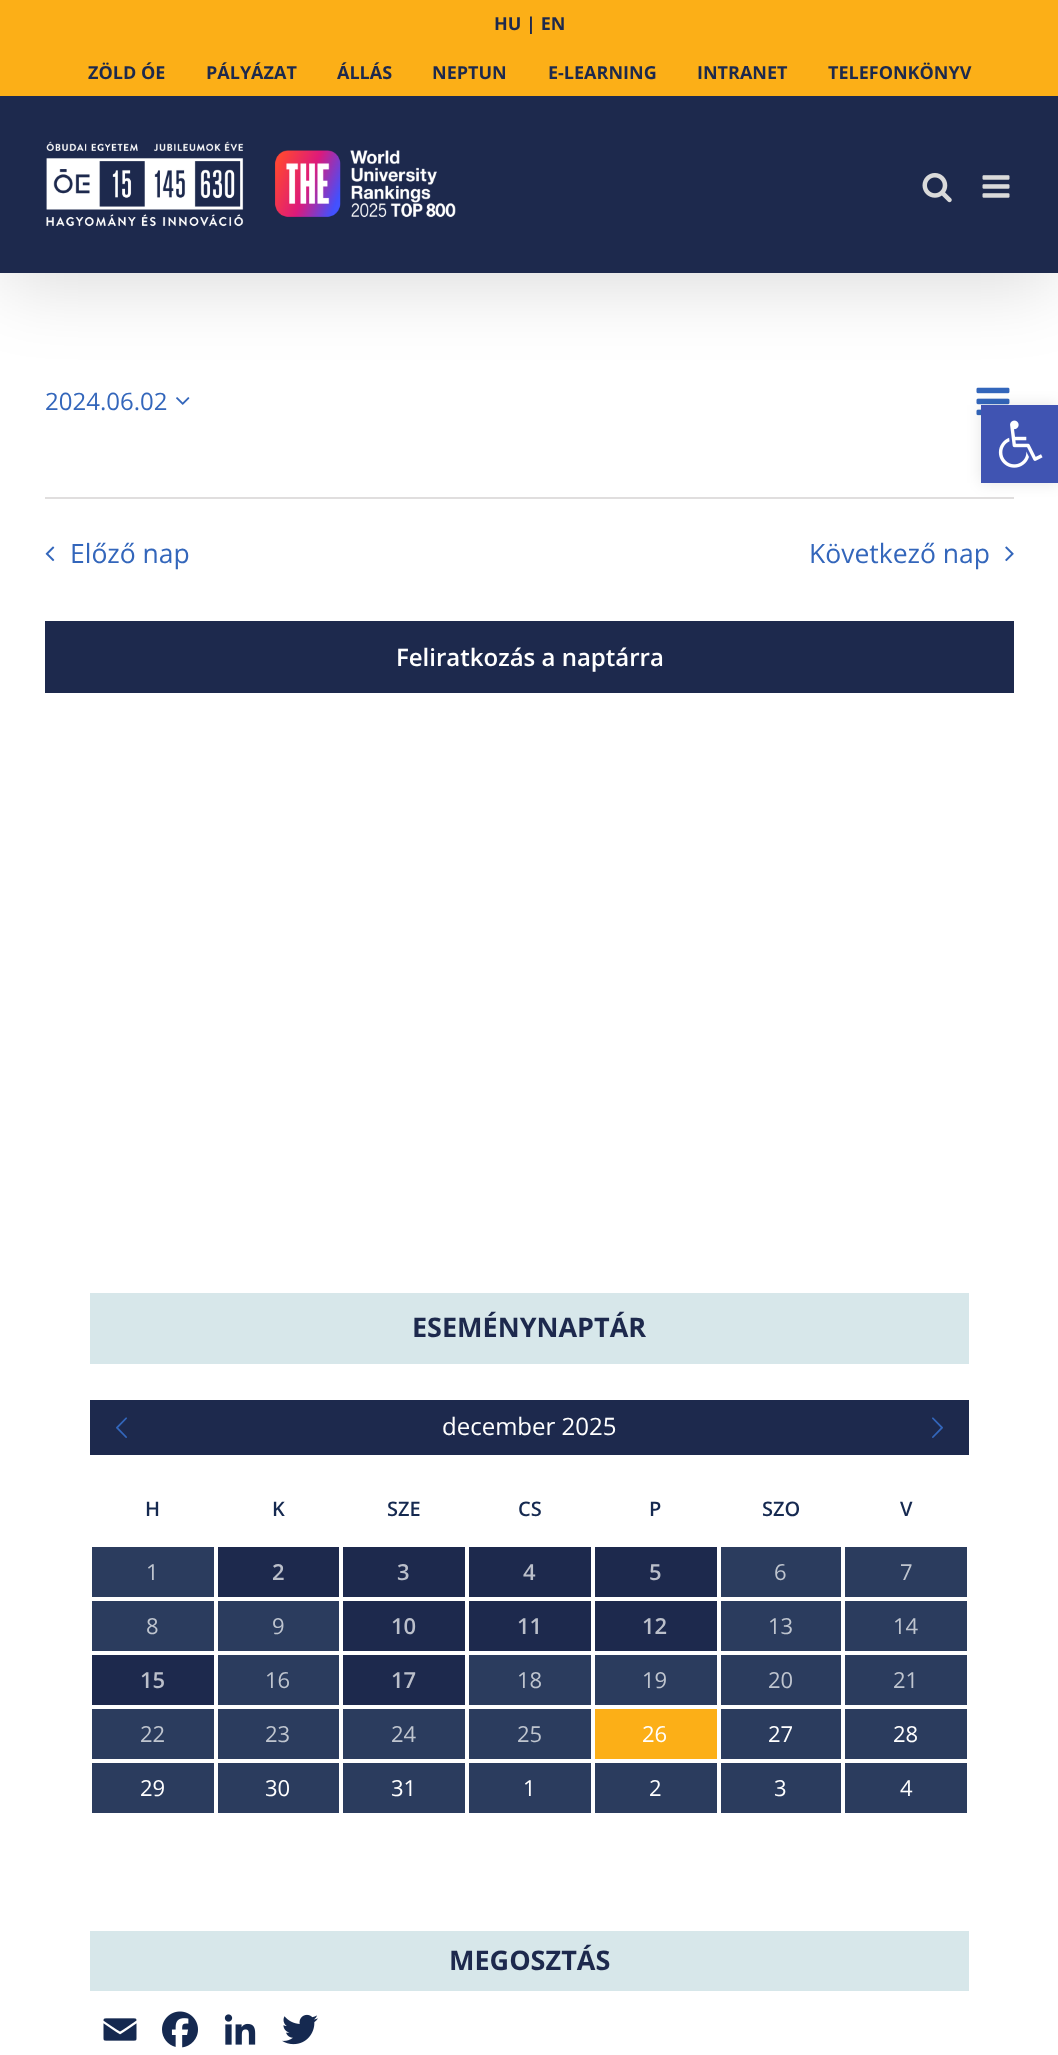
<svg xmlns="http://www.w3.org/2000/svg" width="1058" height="2055">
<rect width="100%" height="100%" fill="#fff"/>
<image x="176" y="397" width="14" height="8" href="media/5.png"/>
<image x="976" y="387" width="34" height="29" href="media/6.png"/>
<rect x="3" y="18" width="1053" height="267" fill="#00000024" filter="blur(37.5px)"/>
<rect width="1058" height="96" fill="#fcaf17"/>
<text x="494" y="30" style="font-family:Open Sans;font-size:18px;font-weight:bold;fill:#1d294d">HU | EN</text>
<text x="88" y="79" style="font-family:Open Sans;font-size:18px;font-weight:bold;fill:#1d294d">ZÖLD ÓE</text>
<text x="206" y="79" style="font-family:Open Sans;font-size:18px;font-weight:bold;fill:#1d294d">PÁLYÁZAT</text>
<text x="337" y="79" style="font-family:Open Sans;font-size:18px;font-weight:bold;fill:#1d294d">ÁLLÁS</text>
<text x="432" y="79" style="font-family:Open Sans;font-size:18px;font-weight:bold;fill:#1d294d">NEPTUN</text>
<text x="548" y="79" style="font-family:Open Sans;font-size:18px;font-weight:bold;fill:#1d294d">E-LEARNING</text>
<text x="697" y="79" style="font-family:Open Sans;font-size:18px;font-weight:bold;fill:#1d294d">INTRANET</text>
<text x="828" y="79" style="font-family:Open Sans;font-size:18px;font-weight:bold;fill:#1d294d">TELEFONKÖNYV</text>
<rect y="96" width="1058" height="177" fill="#1d294d"/>
<image x="46" y="141" width="198" height="86" href="media/1.png"/>
<image x="275" y="150" width="181" height="68" href="media/2.png"/>
<image x="922" y="173" width="30" height="30" href="media/3.png"/>
<image x="982" y="175" width="28" height="23" href="media/4.png"/>
<text x="45" y="410" style="font-family:Open Sans;font-size:24px;fill:#36b">2024.06.02</text>
<rect x="45" y="497" width="969" height="2" fill="#e0dede"/>
<image x="45" y="546" width="10" height="16" href="media/7.png"/>
<text x="70" y="563" style="font-family:Open Sans;font-size:26.5px;fill:#36b">Előző nap</text>
<text x="809" y="563" style="font-family:Open Sans;font-size:26.5px;fill:#36b">Következő nap</text>
<image x="1005" y="546" width="9" height="16" href="media/8.png"/>
<rect x="45" y="621" width="969" height="72" fill="#1d294d"/>
<text x="396" y="666" style="font-family:Open Sans;font-size:24px;font-weight:600;fill:#fff">Feliratkozás a naptárra</text>
<rect x="90" y="1293" width="879" height="71" fill="#d7e7ea"/>
<text x="412" y="1337" style="font-family:Open Sans;font-size:27px;font-weight:bold;fill:#1d294d">ESEMÉNYNAPTÁR</text>
<rect x="90" y="1400" width="879" height="55" fill="#1d294d"/>
<image x="116" y="1417" width="11" height="21" href="media/9.png"/>
<text x="442" y="1435" style="font-family:Open Sans;font-size:24px;fill:#fff">december 2025</text>
<image x="932" y="1417" width="11" height="21" href="media/10.png"/>
<text x="145" y="1516" style="font-family:Open Sans;font-size:20px;font-weight:600;fill:#152950">H</text>
<text x="272" y="1516" style="font-family:Open Sans;font-size:20px;font-weight:600;fill:#152950">K</text>
<text x="387" y="1516" style="font-family:Open Sans;font-size:20px;font-weight:600;fill:#152950">SZE</text>
<text x="518" y="1516" style="font-family:Open Sans;font-size:20px;font-weight:600;fill:#152950">CS</text>
<text x="649" y="1516" style="font-family:Open Sans;font-size:20px;font-weight:600;fill:#152950">P</text>
<text x="762" y="1516" style="font-family:Open Sans;font-size:20px;font-weight:600;fill:#152950">SZO</text>
<text x="900" y="1516" style="font-family:Open Sans;font-size:20px;font-weight:600;fill:#152950">V</text>
<rect x="92" y="1547" width="122" height="50" fill="#2b3c5e"/>
<text x="146" y="1580" style="font-family:Open Sans;font-size:22px;fill:#bfc5cf">1</text>
<rect x="218" y="1547" width="121" height="50" fill="#1d294d"/>
<text x="272" y="1580" style="font-family:Open Sans;font-size:22px;font-weight:600;fill:#bbbfca">2</text>
<rect x="343" y="1547" width="122" height="50" fill="#1d294d"/>
<text x="397" y="1580" style="font-family:Open Sans;font-size:22px;font-weight:600;fill:#bbbfca">3</text>
<rect x="469" y="1547" width="122" height="50" fill="#1d294d"/>
<text x="523" y="1580" style="font-family:Open Sans;font-size:22px;font-weight:600;fill:#bbbfca">4</text>
<rect x="595" y="1547" width="122" height="50" fill="#1d294d"/>
<text x="649" y="1580" style="font-family:Open Sans;font-size:22px;font-weight:600;fill:#bbbfca">5</text>
<rect x="721" y="1547" width="120" height="50" fill="#2b3c5e"/>
<text x="774" y="1580" style="font-family:Open Sans;font-size:22px;fill:#bfc5cf">6</text>
<rect x="845" y="1547" width="122" height="50" fill="#2b3c5e"/>
<text x="900" y="1580" style="font-family:Open Sans;font-size:22px;fill:#bfc5cf">7</text>
<rect x="92" y="1601" width="122" height="50" fill="#2b3c5e"/>
<text x="146" y="1634" style="font-family:Open Sans;font-size:22px;fill:#bfc5cf">8</text>
<rect x="218" y="1601" width="121" height="50" fill="#2b3c5e"/>
<text x="272" y="1634" style="font-family:Open Sans;font-size:22px;fill:#bfc5cf">9</text>
<rect x="343" y="1601" width="122" height="50" fill="#1d294d"/>
<text x="391" y="1634" style="font-family:Open Sans;font-size:22px;font-weight:600;fill:#bbbfca">10</text>
<rect x="469" y="1601" width="122" height="50" fill="#1d294d"/>
<text x="517" y="1634" style="font-family:Open Sans;font-size:22px;font-weight:600;fill:#bbbfca">11</text>
<rect x="595" y="1601" width="122" height="50" fill="#1d294d"/>
<text x="642" y="1634" style="font-family:Open Sans;font-size:22px;font-weight:600;fill:#bbbfca">12</text>
<rect x="721" y="1601" width="120" height="50" fill="#2b3c5e"/>
<text x="768" y="1634" style="font-family:Open Sans;font-size:22px;fill:#bfc5cf">13</text>
<rect x="845" y="1601" width="122" height="50" fill="#2b3c5e"/>
<text x="893" y="1634" style="font-family:Open Sans;font-size:22px;fill:#bfc5cf">14</text>
<rect x="92" y="1655" width="122" height="50" fill="#1d294d"/>
<text x="140" y="1688" style="font-family:Open Sans;font-size:22px;font-weight:600;fill:#bbbfca">15</text>
<rect x="218" y="1655" width="121" height="50" fill="#2b3c5e"/>
<text x="265" y="1688" style="font-family:Open Sans;font-size:22px;fill:#bfc5cf">16</text>
<rect x="343" y="1655" width="122" height="50" fill="#1d294d"/>
<text x="391" y="1688" style="font-family:Open Sans;font-size:22px;font-weight:600;fill:#bbbfca">17</text>
<rect x="469" y="1655" width="122" height="50" fill="#2b3c5e"/>
<text x="517" y="1688" style="font-family:Open Sans;font-size:22px;fill:#bfc5cf">18</text>
<rect x="595" y="1655" width="122" height="50" fill="#2b3c5e"/>
<text x="642" y="1688" style="font-family:Open Sans;font-size:22px;fill:#bfc5cf">19</text>
<rect x="721" y="1655" width="120" height="50" fill="#2b3c5e"/>
<text x="768" y="1688" style="font-family:Open Sans;font-size:22px;fill:#bfc5cf">20</text>
<rect x="845" y="1655" width="122" height="50" fill="#2b3c5e"/>
<text x="893" y="1688" style="font-family:Open Sans;font-size:22px;fill:#bfc5cf">21</text>
<rect x="92" y="1709" width="122" height="50" fill="#2b3c5e"/>
<text x="140" y="1742" style="font-family:Open Sans;font-size:22px;fill:#bfc5cf">22</text>
<rect x="218" y="1709" width="121" height="50" fill="#2b3c5e"/>
<text x="265" y="1742" style="font-family:Open Sans;font-size:22px;fill:#bfc5cf">23</text>
<rect x="343" y="1709" width="122" height="50" fill="#2b3c5e"/>
<text x="391" y="1742" style="font-family:Open Sans;font-size:22px;fill:#bfc5cf">24</text>
<rect x="469" y="1709" width="122" height="50" fill="#2b3c5e"/>
<text x="517" y="1742" style="font-family:Open Sans;font-size:22px;fill:#bfc5cf">25</text>
<rect x="595" y="1709" width="122" height="50" fill="#fcaf17"/>
<text x="642" y="1742" style="font-family:Open Sans;font-size:22px;fill:#fff">26</text>
<rect x="721" y="1709" width="120" height="50" fill="#2b3c5e"/>
<text x="768" y="1742" style="font-family:Open Sans;font-size:22px;fill:#fff">27</text>
<rect x="845" y="1709" width="122" height="50" fill="#2b3c5e"/>
<text x="893" y="1742" style="font-family:Open Sans;font-size:22px;fill:#fff">28</text>
<rect x="92" y="1763" width="122" height="50" fill="#2b3c5e"/>
<text x="140" y="1796" style="font-family:Open Sans;font-size:22px;fill:#fff">29</text>
<rect x="218" y="1763" width="121" height="50" fill="#2b3c5e"/>
<text x="265" y="1796" style="font-family:Open Sans;font-size:22px;fill:#fff">30</text>
<rect x="343" y="1763" width="122" height="50" fill="#2b3c5e"/>
<text x="391" y="1796" style="font-family:Open Sans;font-size:22px;fill:#fff">31</text>
<rect x="469" y="1763" width="122" height="50" fill="#2b3c5e"/>
<text x="523" y="1796" style="font-family:Open Sans;font-size:22px;fill:#fff">1</text>
<rect x="595" y="1763" width="122" height="50" fill="#2b3c5e"/>
<text x="649" y="1796" style="font-family:Open Sans;font-size:22px;fill:#fff">2</text>
<rect x="721" y="1763" width="120" height="50" fill="#2b3c5e"/>
<text x="774" y="1796" style="font-family:Open Sans;font-size:22px;fill:#fff">3</text>
<rect x="845" y="1763" width="122" height="50" fill="#2b3c5e"/>
<text x="900" y="1796" style="font-family:Open Sans;font-size:22px;fill:#fff">4</text>
<rect x="90" y="1931" width="879" height="60" fill="#d7e7ea"/>
<text x="449" y="1970" style="font-family:Open Sans;font-size:27px;font-weight:bold;fill:#1d294d">MEGOSZTÁS</text>
<image x="103" y="2018" width="34" height="23" href="media/11.png"/>
<image x="162" y="2011" width="36" height="37" href="media/12.png"/>
<image x="224" y="2014" width="32" height="31" href="media/13.png"/>
<image x="282" y="2014" width="36" height="31" href="media/14.png"/>
<rect x="981" y="405" width="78" height="78" fill="#0000001a" filter="blur(7.5px)"/>
<rect x="981" y="405" width="77" height="78" fill="#4054b2"/>
<image x="998" y="420" width="45" height="48" href="media/15.png"/>
</svg>
